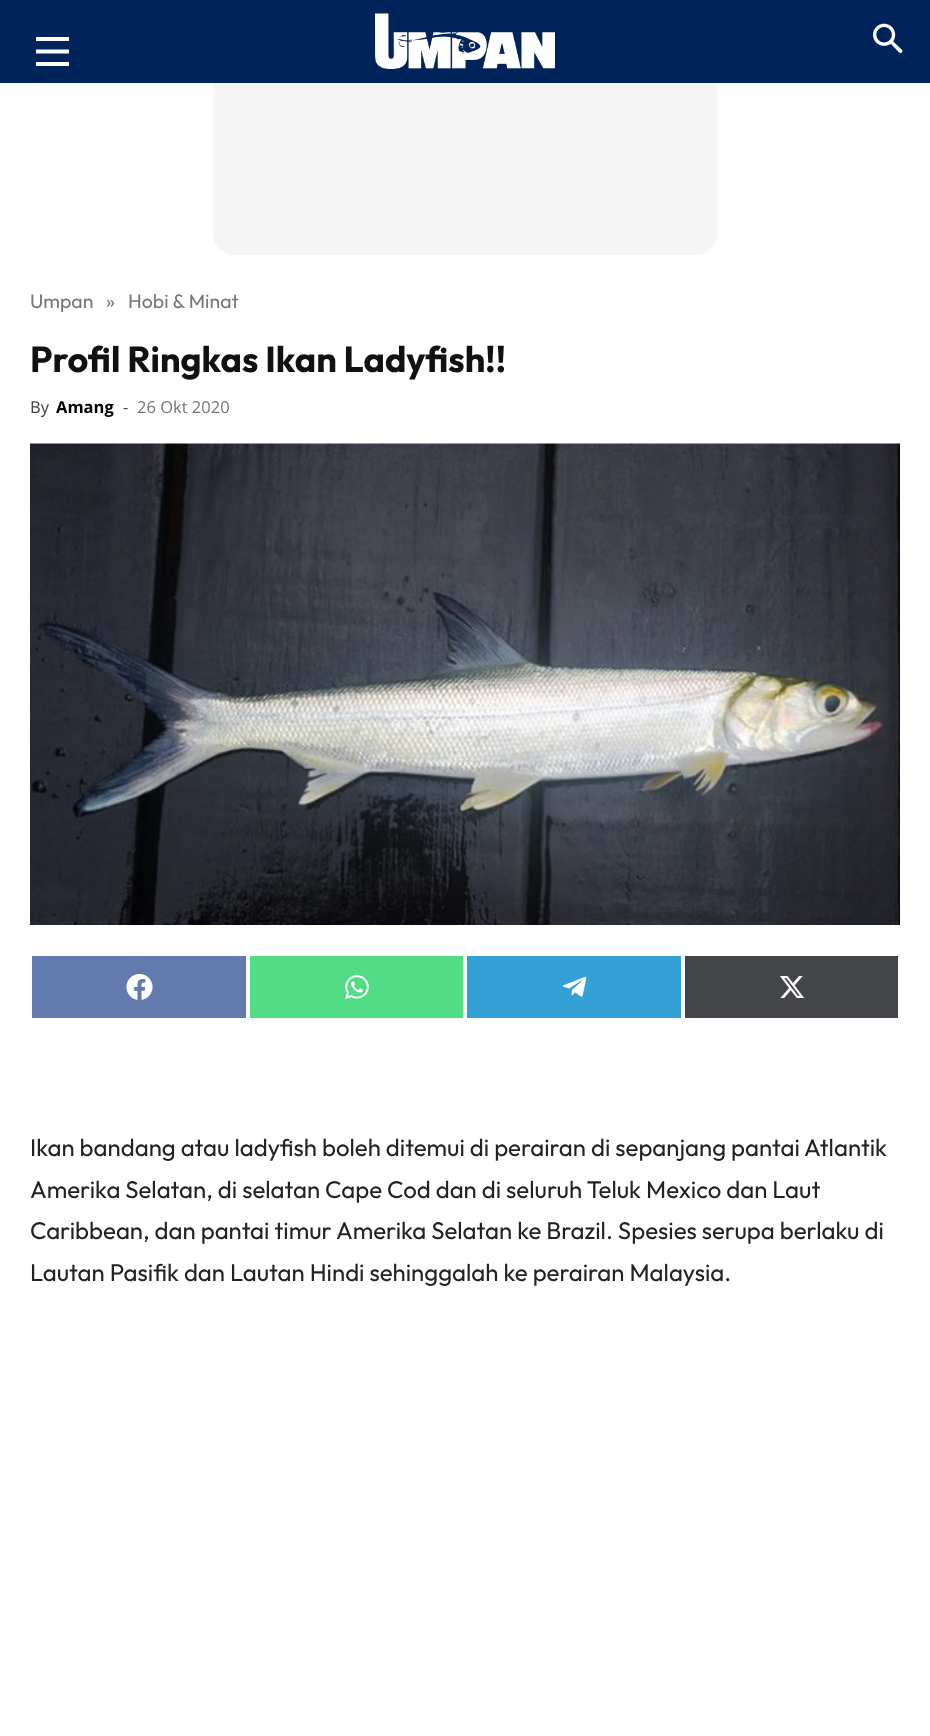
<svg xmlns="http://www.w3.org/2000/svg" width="930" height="1736">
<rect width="100%" height="100%" fill="#fff"/>
<rect x="213" y="-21" width="504" height="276" rx="21" fill="#f5f5f5"/>
<rect width="930" height="83" fill="#002359"/>
<path d="M36 37h33v4h-33zm0 12.5h33v4h-33zm0 12.5h33v4h-33z" fill="#fff"/>
<image x="375" y="13" width="180" height="56" href="media/1.png"/>
<image x="873" y="23" width="30" height="30" href="media/2.png"/>
<text x="30" y="308" style="font-family:Outfit;font-size:19.5px;fill:#767676">Umpan</text>
<text x="106" y="308" style="font-family:Outfit;font-size:19.5px;fill:#767676">»</text>
<text x="128" y="308" style="font-family:Outfit;font-size:19.5px;fill:#767676">Hobi &amp; Minat</text>
<text x="30" y="372" style="font-family:Outfit;font-size:36px;font-weight:bold;fill:#111">Profil Ringkas Ikan Ladyfish!!</text>
<text x="30" y="413" style="font-family:Open Sans;font-size:16.5px;fill:#444">By</text>
<text x="56" y="413" style="font-family:Open Sans;font-size:16.5px;font-weight:bold;fill:#000">Amang</text>
<text x="123" y="413" style="font-family:Open Sans;font-size:16.5px;fill:#444">-</text>
<text x="137" y="413" style="font-family:Open Sans;font-size:16.5px;fill:#767676">26 Okt 2020</text>
<image x="30" y="443" width="870" height="482" href="media/3.png"/>
<rect x="32" y="956" width="214" height="62" fill="#627aad"/>
<image x="126" y="974" width="27" height="26" href="media/4.png"/>
<rect x="250" y="956" width="213" height="62" fill="#51dc85"/>
<image x="345" y="975" width="24" height="24" href="media/5.png"/>
<rect x="467" y="956" width="214" height="62" fill="#33a0d6"/>
<image x="562" y="976" width="25" height="21" href="media/6.png"/>
<rect x="685" y="956" width="213" height="62" fill="#434548"/>
<image x="780" y="976" width="25" height="22" href="media/7.png"/>
<text x="30" y="1156" style="font-family:Outfit;font-size:24px;fill:#222">Ikan bandang atau ladyfish boleh ditemui di perairan di sepanjang pantai Atlantik</text>
<text x="30" y="1198" style="font-family:Outfit;font-size:24px;fill:#222">Amerika Selatan, di selatan Cape Cod dan di seluruh Teluk Mexico dan Laut</text>
<text x="30" y="1239" style="font-family:Outfit;font-size:24px;fill:#222">Caribbean, dan pantai timur Amerika Selatan ke Brazil. Spesies serupa berlaku di</text>
<text x="30" y="1281" style="font-family:Outfit;font-size:24px;fill:#222">Lautan Pasifik dan Lautan Hindi sehinggalah ke perairan Malaysia.</text>
</svg>
